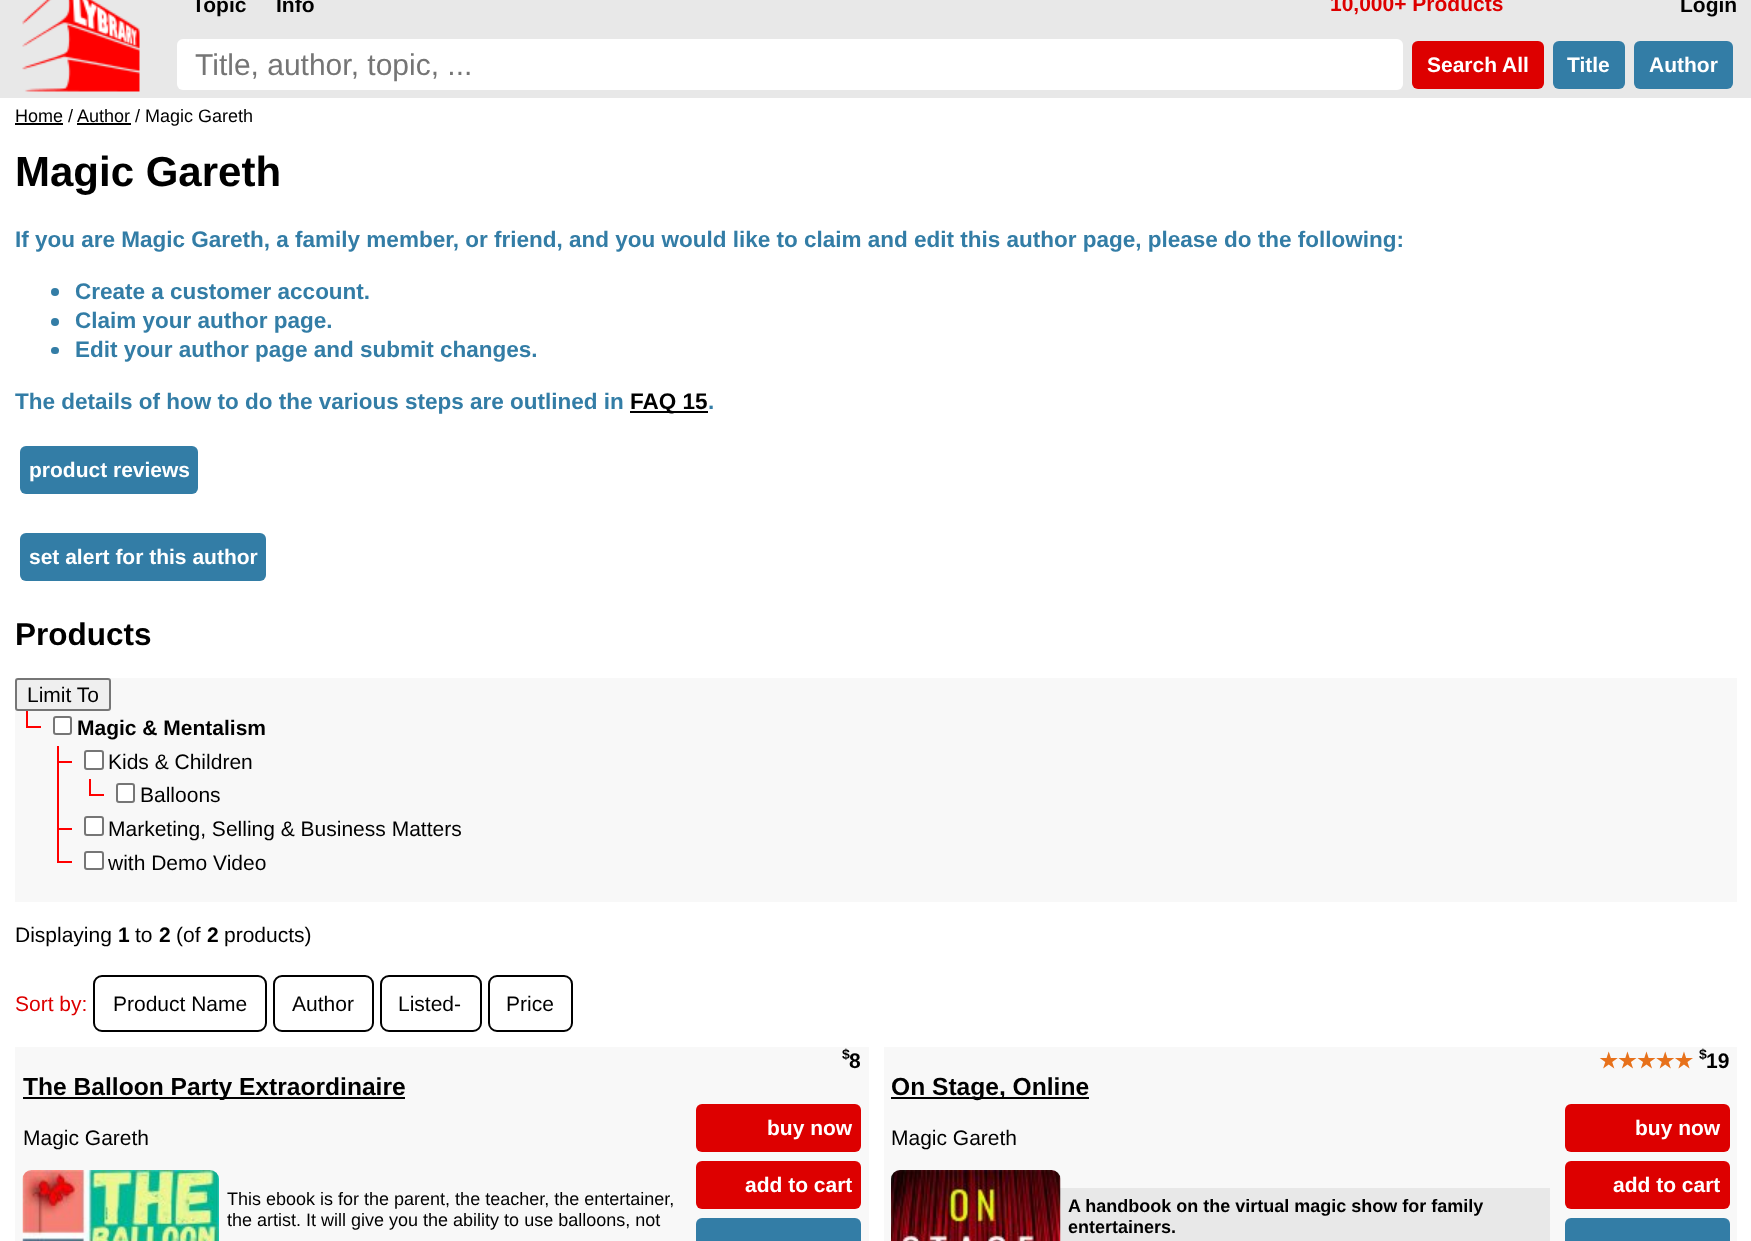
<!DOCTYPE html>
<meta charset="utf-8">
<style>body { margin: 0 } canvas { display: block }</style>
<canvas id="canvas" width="1751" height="1241"></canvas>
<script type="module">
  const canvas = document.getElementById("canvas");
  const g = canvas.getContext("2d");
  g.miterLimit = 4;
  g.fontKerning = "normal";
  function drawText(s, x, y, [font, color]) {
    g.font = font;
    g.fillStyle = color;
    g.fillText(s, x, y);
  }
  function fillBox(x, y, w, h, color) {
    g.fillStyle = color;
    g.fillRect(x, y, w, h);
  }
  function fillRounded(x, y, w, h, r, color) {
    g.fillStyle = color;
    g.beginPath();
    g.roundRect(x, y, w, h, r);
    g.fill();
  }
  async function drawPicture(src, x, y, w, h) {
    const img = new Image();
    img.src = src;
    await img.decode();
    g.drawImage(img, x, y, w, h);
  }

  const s1 = ["bold 21px Liberation Sans", "#000000"];
  const s2 = ["bold 21px Liberation Sans", "#DD0000"];
  const s3 = ["30px Liberation Sans", "#757575"];
  const s4 = ["bold 21px Liberation Sans", "#FFFFFF"];
  const s5 = ["18px Liberation Sans", "#000000"];
  const s6 = ["bold 42px Liberation Sans", "#000000"];
  const s7 = ["bold 22.5px Liberation Sans", "#337DA6"];
  const s8 = ["bold 22.5px Liberation Sans", "#000000"];
  const s9 = ["bold 31.5px Liberation Sans", "#000000"];
  const s10 = ["21px Liberation Sans", "#000000"];
  const s11 = ["21px Liberation Sans", "#DD0000"];
  const s12 = ["bold 14px Liberation Sans", "#000000"];
  const s13 = ["bold 24.6px Liberation Sans", "#000000"];
  const s14 = ["bold 21px DejaVu Sans", "#E7711B"];
  const s15 = ["bold 18px Liberation Sans", "#000000"];

  fillBox(0, 0, 1751, 1241, "#E8E8E8");
  await drawPicture("pic1.png", 22, 0, 118, 92);
  drawText("Topic", 192, 12, s1);
  drawText("Info", 276, 12, s1);
  drawText("10,000+ Products", 1330, 11, s2);
  drawText("Login", 1680, 12, s1);
  fillRounded(177, 39, 1226, 51, 6, "#FFFFFF");
  drawText("Title, author, topic, ...", 195, 75, s3);
  fillRounded(1412, 41, 132, 48, 6, "#DD0000");
  drawText("Search", 1427, 72, s4);
  drawText("All", 1502, 72, s4);
  fillRounded(1553, 41, 72, 48, 6, "#337DA6");
  drawText("Title", 1567, 72, s4);
  fillRounded(1634, 41, 99, 48, 6, "#337DA6");
  drawText("Author", 1649, 72, s4);
  fillBox(0, 98, 1751, 1143, "#FFFFFF");
  drawText("Home", 15, 122, s5);
  fillBox(15, 123, 48, 2, "#000000");
  drawText("/", 68, 122, s5);
  fillBox(77, 123, 54, 2, "#000000");
  drawText("Author / Magic Gareth", 77, 122, s5);
  drawText("Magic Gareth", 15, 186, s6);
  drawText("If you are Magic Gareth, a family member, or friend, and you would like to claim and edit this author page, please do the following:", 15, 247, s7);
  g.beginPath();
  g.arc(55, 292, 4, 0, Math.PI * 2);
  g.fill();
  drawText("Create a customer account.", 75, 299, s7);
  g.beginPath();
  g.arc(55, 322, 4, 0, Math.PI * 2);
  g.fill();
  drawText("Claim your author page.", 75, 328, s7);
  fillRounded(51, 347, 8, 7, 3.5, "#337DA6");
  drawText("Edit your author page and submit changes.", 75, 357, s7);
  drawText("The details of how to do the various steps are outlined in", 15, 409, s7);
  fillBox(630, 411, 78, 2, "#000000");
  drawText("FAQ 15", 630, 409, s8);
  drawText(".", 708, 409, s7);
  fillRounded(20, 446, 178, 48, 6, "#337DA6");
  drawText("product reviews", 29, 477, s4);
  fillRounded(20, 533, 246, 48, 6, "#337DA6");
  drawText("set alert for this author", 29, 564, s4);
  drawText("Products", 15, 645, s9);
  fillBox(15, 678, 1722, 224, "#F8F8F8");
  g.fillStyle = "#EFEFEF";
  g.beginPath();
  g.roundRect(16, 679, 94, 31, 2);
  g.fill();
  g.strokeStyle = "#767676";
  g.lineWidth = 2;
  g.stroke();
  drawText("Limit To", 27, 702, s10);
  fillBox(26, 711, 2, 15, "#FF0000");
  fillBox(26, 726, 15, 2, "#FF0000");
  g.fillStyle = "#FFFFFF";
  g.beginPath();
  g.roundRect(54, 717, 17, 17, 2);
  g.fill();
  g.stroke();
  drawText("Magic & Mentalism", 77, 735, s1);
  fillBox(57, 746, 2, 115, "#FF0000");
  fillBox(57, 761, 15, 2, "#FF0000");
  g.fillStyle = "#FFFFFF";
  g.beginPath();
  g.roundRect(85, 751, 18, 18, 2);
  g.fill();
  g.stroke();
  drawText("Kids & Children", 108, 769, s10);
  fillBox(89, 779, 2, 15, "#FF0000");
  fillBox(89, 794, 15, 2, "#FF0000");
  g.fillStyle = "#FFFFFF";
  g.beginPath();
  g.roundRect(117, 784, 17, 18, 2);
  g.fill();
  g.stroke();
  drawText("Balloons", 140, 802, s10);
  fillBox(57, 828, 15, 2, "#FF0000");
  g.fillStyle = "#FFFFFF";
  g.beginPath();
  g.roundRect(85, 817, 18, 18, 2);
  g.fill();
  g.stroke();
  drawText("Marketing, Selling & Business Matters", 108, 836, s10);
  fillBox(57, 861, 15, 2, "#FF0000");
  g.fillStyle = "#FFFFFF";
  g.beginPath();
  g.roundRect(85, 852, 18, 17, 2);
  g.fill();
  g.stroke();
  drawText("with Demo Video", 108, 870, s10);
  drawText("Displaying", 15, 942, s10);
  drawText("1", 118, 942, s1);
  drawText("to", 135, 942, s10);
  drawText("2", 159, 942, s1);
  drawText("(of", 176, 942, s10);
  drawText("2", 207, 942, s1);
  drawText("products)", 224, 942, s10);
  drawText("Sort by:", 15, 1011, s11);
  g.beginPath();
  g.roundRect(94, 976, 172, 55, 8);
  g.strokeStyle = "#000000";
  g.stroke();
  drawText("Product Name", 113, 1011, s10);
  g.beginPath();
  g.roundRect(274, 976, 99, 55, 8);
  g.stroke();
  drawText("Author", 292, 1011, s10);
  g.beginPath();
  g.roundRect(381, 976, 100, 55, 8);
  g.stroke();
  drawText("Listed-", 398, 1011, s10);
  g.beginPath();
  g.roundRect(489, 976, 83, 55, 8);
  g.stroke();
  drawText("Price", 506, 1011, s10);
  fillBox(15, 1047, 854, 194, "#F8F8F8");
  drawText("$", 842, 1059, s12);
  drawText("8", 849, 1068, s1);
  fillBox(23, 1097, 382, 2, "#000000");
  drawText("The Balloon Party Extraordinaire", 23, 1095, s13);
  drawText("Magic Gareth", 23, 1145, s10);
  fillRounded(696, 1104, 165, 48, 6, "#DD0000");
  drawText("buy now", 767, 1135, s4);
  fillRounded(696, 1161, 165, 48, 6, "#DD0000");
  drawText("add to cart", 745, 1192, s4);
  fillRounded(696, 1218, 165, 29, 6, "#337DA6");
  await drawPicture("pic2.png", 22, 1170, 197, 71);
  drawText("This ebook is for the parent, the teacher, the entertainer,", 227, 1205, s5);
  drawText("the artist. It will give you the ability to use balloons, not", 227, 1226, s5);
  fillBox(884, 1047, 853, 194, "#F8F8F8");
  drawText("★★★★★", 1599, 1068, s14);
  drawText("$", 1699, 1059, s12);
  drawText("19", 1706, 1068, s1);
  fillBox(891, 1097, 198, 2, "#000000");
  drawText("On Stage, Online", 891, 1095, s13);
  drawText("Magic Gareth", 891, 1145, s10);
  fillRounded(1565, 1104, 165, 48, 6, "#DD0000");
  drawText("buy now", 1635, 1135, s4);
  fillRounded(1565, 1161, 165, 48, 6, "#DD0000");
  drawText("add to cart", 1613, 1192, s4);
  fillRounded(1565, 1218, 165, 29, 6, "#337DA6");
  fillBox(1060, 1188, 490, 53, "#E8E8E8");
  await drawPicture("pic3.png", 891, 1170, 170, 71);
  drawText("A handbook on the virtual magic show for family", 1068, 1212, s15);
  drawText("entertainers.", 1068, 1233, s15);
</script>
